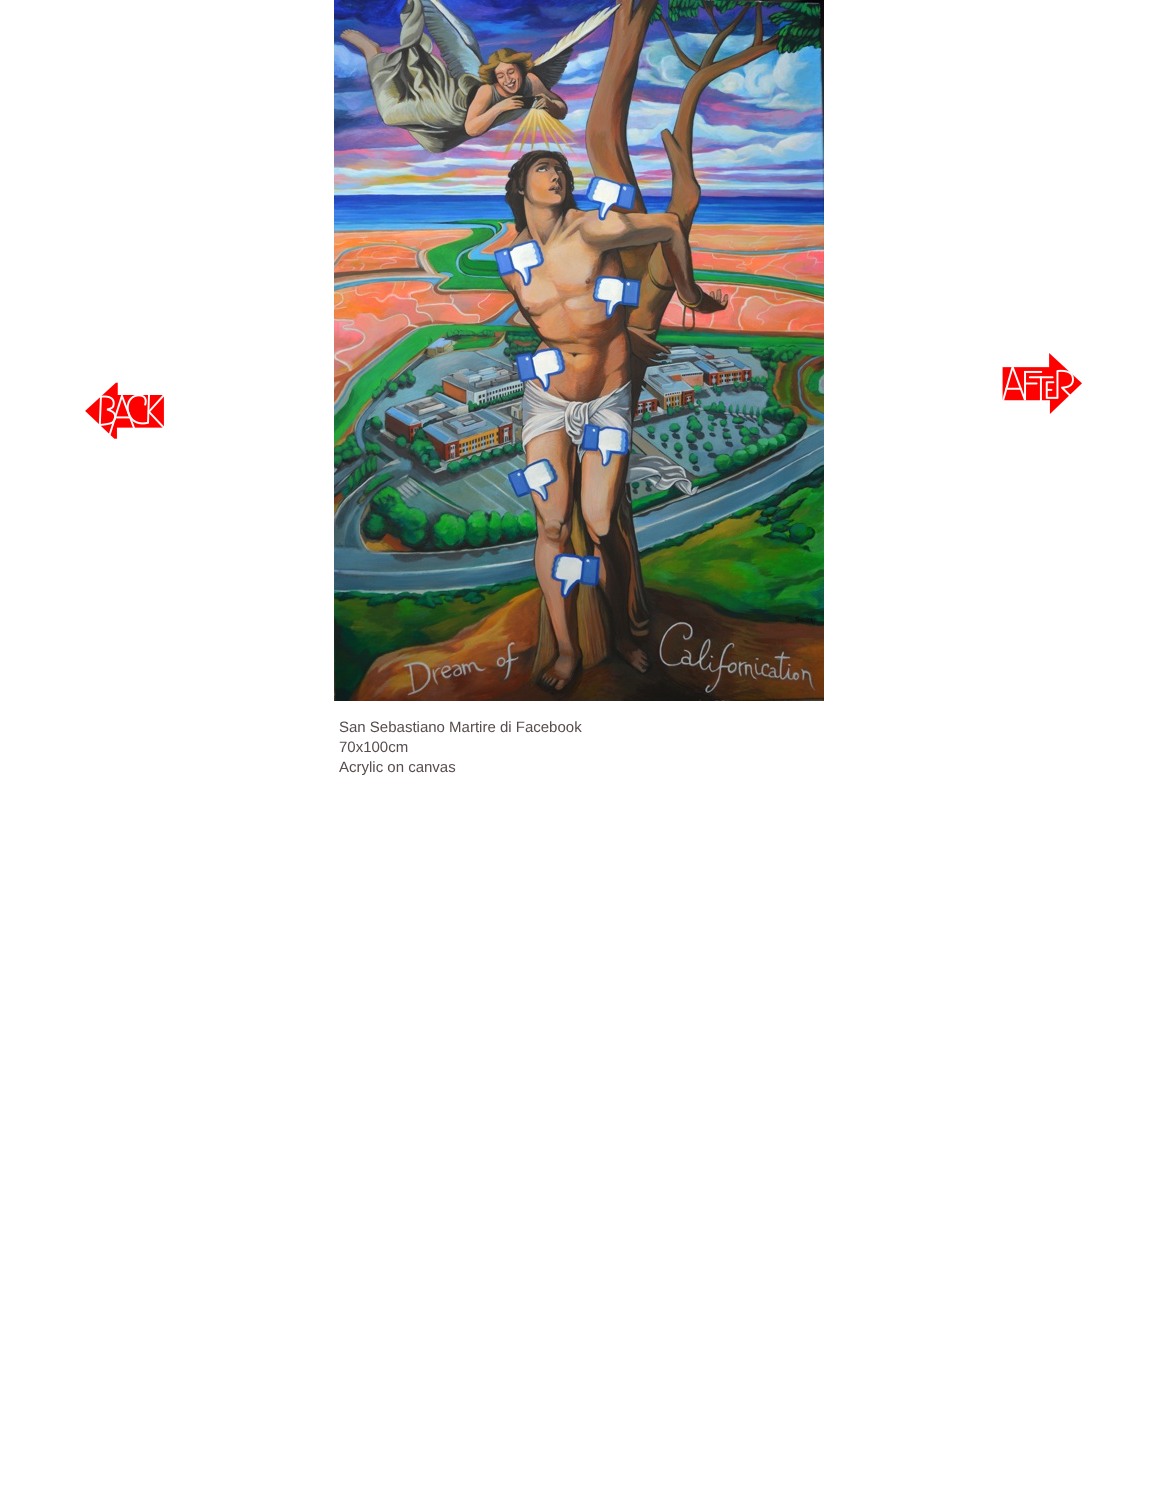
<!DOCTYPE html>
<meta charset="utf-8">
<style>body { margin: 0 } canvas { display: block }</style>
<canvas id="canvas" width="1157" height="1492"></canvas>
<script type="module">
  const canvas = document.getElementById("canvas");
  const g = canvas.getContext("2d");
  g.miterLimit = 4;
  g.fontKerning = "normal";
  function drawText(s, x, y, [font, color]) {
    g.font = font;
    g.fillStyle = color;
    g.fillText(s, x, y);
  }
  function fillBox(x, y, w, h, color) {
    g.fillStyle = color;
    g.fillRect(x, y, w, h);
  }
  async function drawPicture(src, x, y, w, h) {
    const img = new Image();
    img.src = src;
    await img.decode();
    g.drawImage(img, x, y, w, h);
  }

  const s1 = ["15px Liberation Sans", "#584D4D"];

  fillBox(0, 0, 1157, 1492, "#FFFFFF");
  await drawPicture("pic1.png", 85, 382, 79, 57);
  await drawPicture("pic2.png", 334, 0, 490, 701);
  await drawPicture("pic3.png", 1002, 353, 80, 61);
  drawText("San Sebastiano Martire di Facebook", 339, 732, s1);
  drawText("70x100cm", 339, 752, s1);
  drawText("Acrylic on canvas", 339, 772, s1);
</script>
